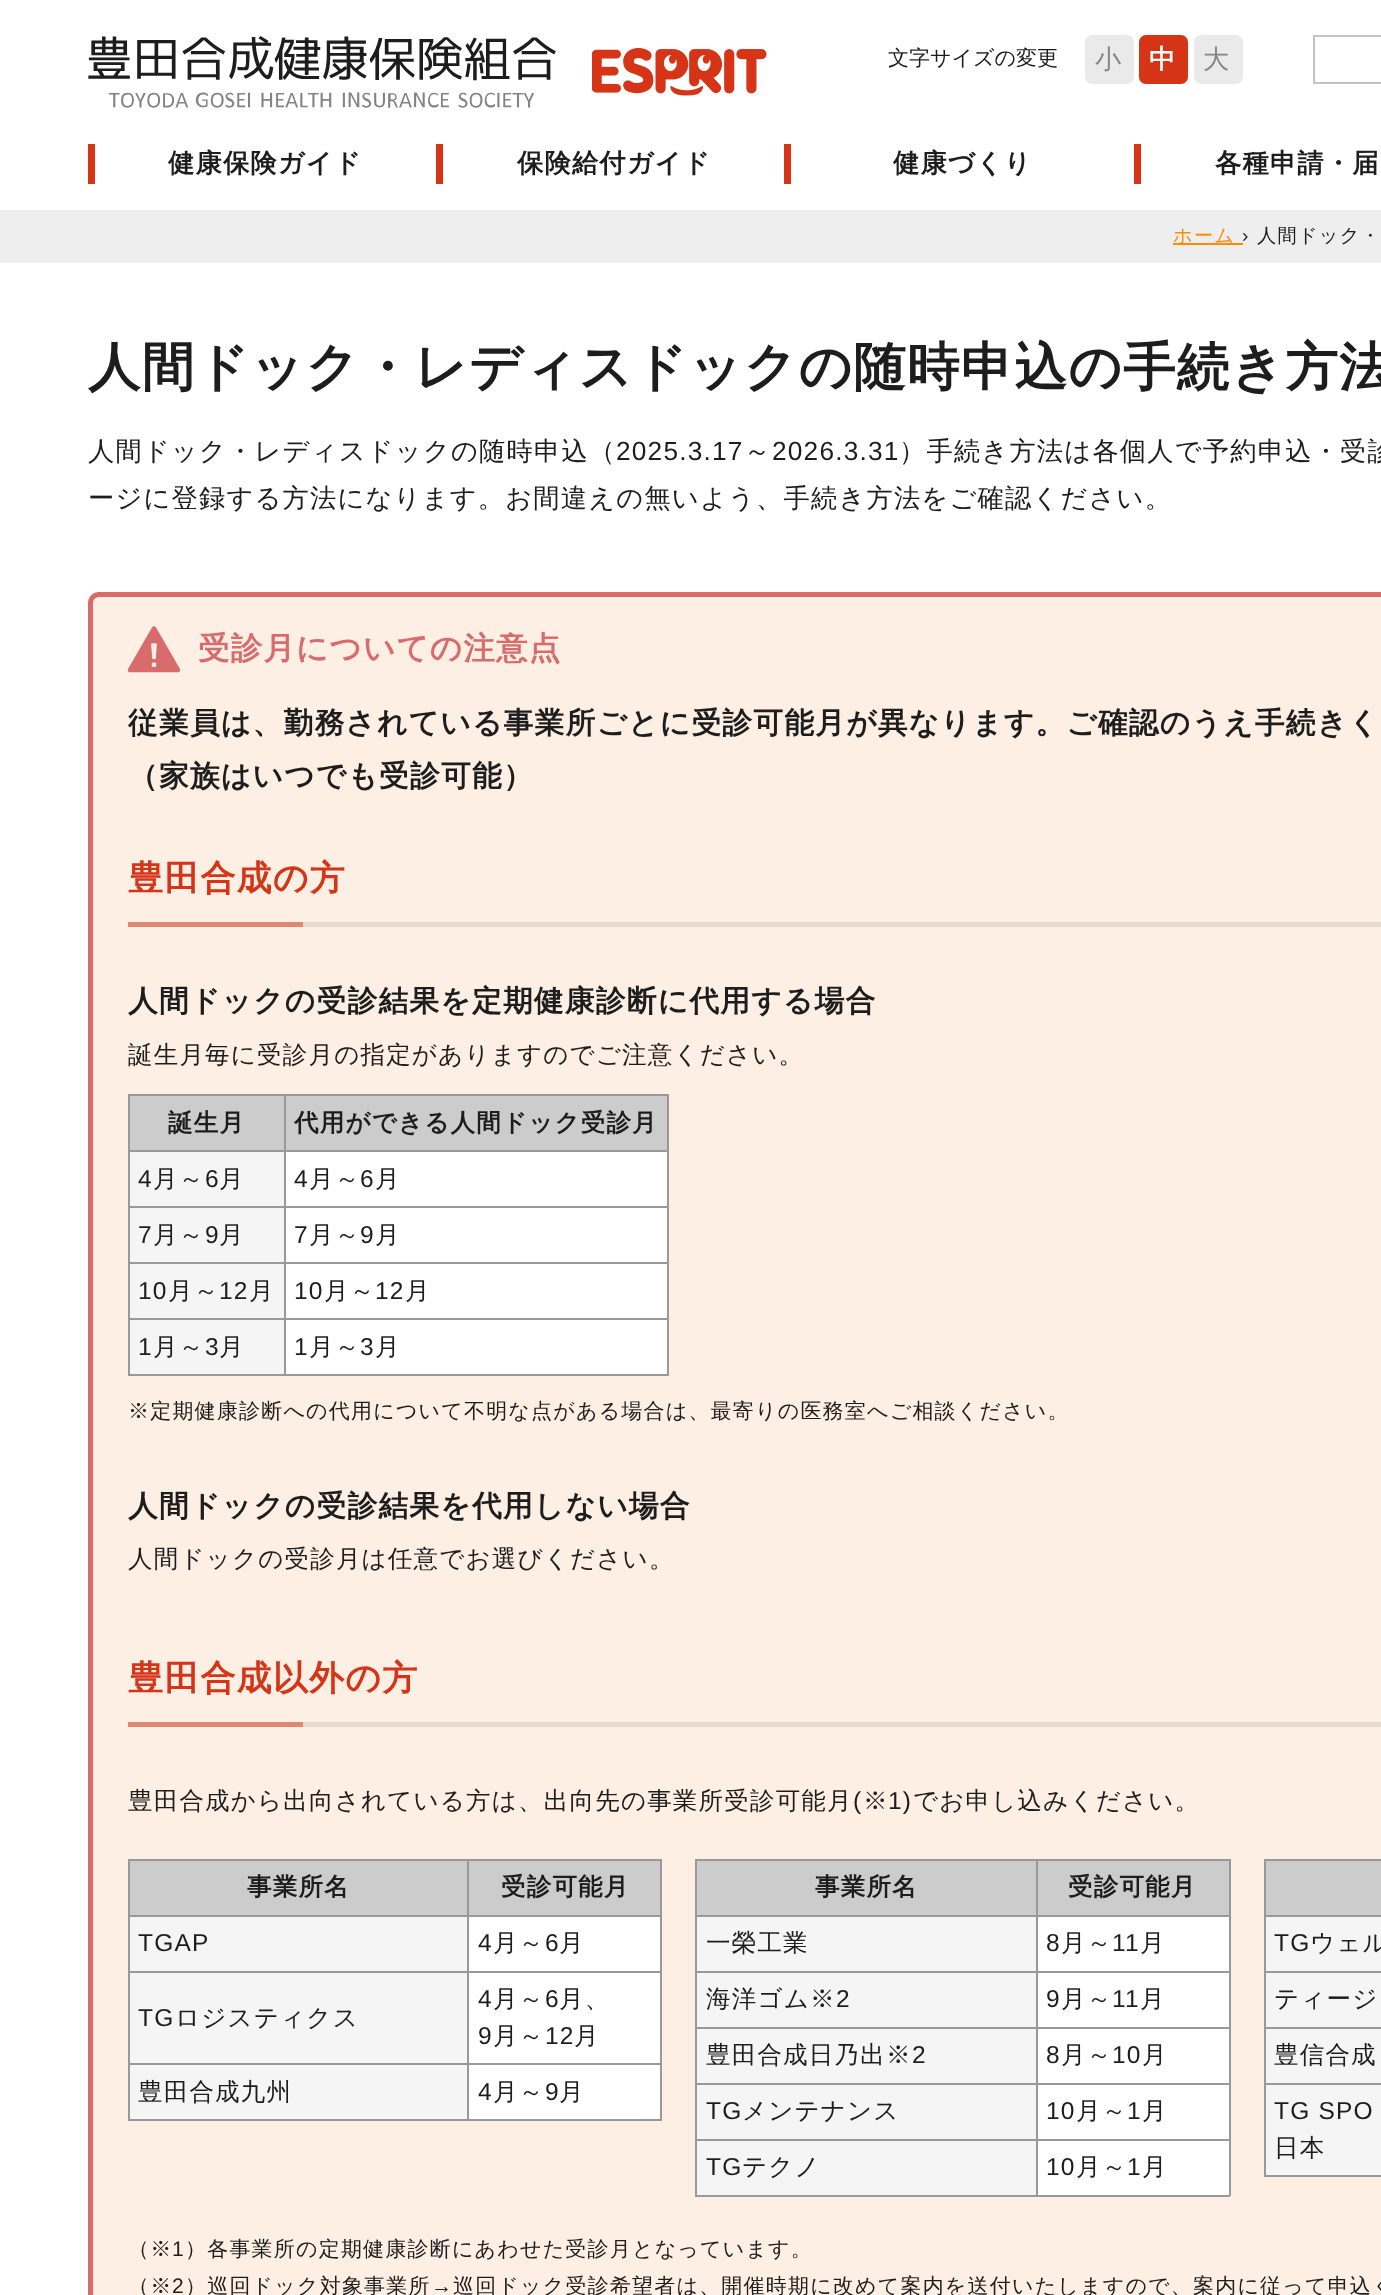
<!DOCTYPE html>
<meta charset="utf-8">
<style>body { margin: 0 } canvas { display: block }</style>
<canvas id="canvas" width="1381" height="2295"></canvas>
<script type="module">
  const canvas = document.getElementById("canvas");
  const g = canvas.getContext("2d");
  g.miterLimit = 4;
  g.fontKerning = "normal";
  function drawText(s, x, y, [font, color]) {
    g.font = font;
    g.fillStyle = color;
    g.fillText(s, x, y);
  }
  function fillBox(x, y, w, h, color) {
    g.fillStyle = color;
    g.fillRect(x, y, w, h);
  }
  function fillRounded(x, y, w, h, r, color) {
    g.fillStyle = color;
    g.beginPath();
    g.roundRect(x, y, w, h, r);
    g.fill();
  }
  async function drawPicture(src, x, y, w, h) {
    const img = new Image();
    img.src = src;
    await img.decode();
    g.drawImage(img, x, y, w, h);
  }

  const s1 = ["500 21px WenQuanYi Zen Hei", "#1D1D1D"];
  const s2 = ["500 26.25px WenQuanYi Zen Hei", "#868687"];
  const s3 = ["bold 26.25px WenQuanYi Zen Hei", "#FFFFFF"];
  const s4 = ["bold 26.25px WenQuanYi Zen Hei", "#1D1D1D"];
  const s5 = ["500 19.25px WenQuanYi Zen Hei", "#FF8C00"];
  const s6 = ["19.25px Liberation Sans", "#1D1D1D"];
  const s7 = ["500 19.25px WenQuanYi Zen Hei", "#1D1D1D"];
  const s8 = ["bold 52.5px WenQuanYi Zen Hei", "#1D1D1D"];
  const s9 = ["500 26.25px WenQuanYi Zen Hei", "#1D1D1D"];
  const s10 = ["26.25px Liberation Sans", "#1D1D1D"];
  const s11 = ["bold 31.5px WenQuanYi Zen Hei", "#D86B6B"];
  const s12 = ["bold 29.75px WenQuanYi Zen Hei", "#1D1D1D"];
  const s13 = ["bold 35px WenQuanYi Zen Hei", "#D53417"];
  const s14 = ["500 24.5px WenQuanYi Zen Hei", "#1D1D1D"];
  const s15 = ["bold 24.5px WenQuanYi Zen Hei", "#1D1D1D"];
  const s16 = ["24.5px Liberation Sans", "#1D1D1D"];
  const s17 = ["21px Liberation Sans", "#1D1D1D"];

  fillBox(0, 0, 1381, 2295, "#FFFFFF");
  await drawPicture("pic1.png", 88, 36, 468, 72);
  await drawPicture("pic2.png", 592, 48, 175, 48);
  drawText("文字サイズの変更", 888, 65, s1);
  fillRounded(1085, 35, 49, 49, 7, "#EAEAEA");
  g.letterSpacing = "1.2px";
  drawText("小", 1095, 68, s2);
  fillRounded(1139, 35, 49, 49, 7, "#D53417");
  drawText("中", 1149, 68, s3);
  fillRounded(1194, 35, 49, 49, 7, "#EAEAEA");
  drawText("大", 1203, 68, s2);
  g.strokeStyle = "#C3C3C3";
  g.lineWidth = 2;
  g.strokeRect(1314, 36, 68, 47);
  fillBox(88, 144, 7, 40, "#D53417");
  fillBox(436, 144, 7, 40, "#D53417");
  drawText("健康保険ガイド", 168, 172, s4);
  fillBox(784, 144, 7, 40, "#D53417");
  drawText("保険給付ガイド", 517, 172, s4);
  fillBox(1134, 144, 7, 40, "#D53417");
  drawText("健康づくり", 893, 172, s4);
  drawText("各種申請・届", 1215, 172, s4);
  fillBox(0, 210, 1381, 53, "#EEEEEE");
  fillBox(1173, 243, 70, 2, "#FF8C00");
  drawText("ホーム", 1173, 242, s5);
  drawText("›", 1242, 242, s6);
  drawText("人間ドック・", 1257, 242, s7);
  drawText("人間ドック・レディスドックの随時申込の手続き方法", 88, 385, s8);
  drawText("人間ドック・レディスドックの随時申込（", 88, 460, s9);
  drawText("2025.3.17", 616, 460, s10);
  drawText("～", 744, 460, s9);
  drawText("2026.3.31", 772, 460, s10);
  drawText("）手続き方法は各個人で予約申込・受診", 899, 460, s9);
  drawText("ージに登録する方法になります。お間違えの無いよう、手続き方法をご確認ください。", 88, 507, s9);
  g.fillStyle = "#FDEFE4";
  g.beginPath();
  g.roundRect(90.5, 594.5, 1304, 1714, 8.5);
  g.fill();
  g.strokeStyle = "#D86B6B";
  g.lineWidth = 5;
  g.stroke();
  await drawPicture("pic3.png", 128, 626, 52, 47);
  drawText("受診月についての注意点", 198, 659, s11);
  drawText("従業員は、勤務されている事業所ごとに受診可能月が異なります。ご確認のうえ手続きく", 128, 733, s12);
  drawText("（家族はいつでも受診可能）", 128, 786, s12);
  fillBox(303, 922, 1078, 5, "#E5DAD1");
  drawText("豊田合成の方", 128, 890, s13);
  fillBox(128, 922, 175, 5, "#DD8774");
  drawText("人間ドックの受診結果を定期健康診断に代用する場合", 128, 1011, s12);
  drawText("誕生月毎に受診月の指定がありますのでご注意ください。", 128, 1063, s14);
  fillBox(130, 1096, 154, 54, "#CCCCCC");
  fillBox(284, 1094, 385, 2, "#999999");
  fillBox(284, 1150, 385, 2, "#999999");
  fillBox(284, 1206, 385, 2, "#999999");
  fillBox(284, 1262, 385, 2, "#999999");
  fillBox(284, 1318, 385, 2, "#999999");
  fillBox(667, 1318, 2, 58, "#999999");
  fillBox(284, 1374, 385, 2, "#999999");
  fillBox(284, 1318, 2, 58, "#999999");
  fillBox(128, 1318, 157, 2, "#999999");
  fillBox(284, 1262, 2, 58, "#999999");
  fillBox(128, 1262, 157, 2, "#999999");
  fillBox(284, 1206, 2, 58, "#999999");
  fillBox(128, 1206, 157, 2, "#999999");
  fillBox(284, 1150, 2, 58, "#999999");
  fillBox(128, 1150, 157, 2, "#999999");
  fillBox(284, 1094, 2, 58, "#999999");
  fillBox(128, 1094, 157, 2, "#999999");
  fillBox(128, 1374, 157, 2, "#999999");
  fillBox(128, 1318, 2, 58, "#999999");
  fillBox(128, 1262, 2, 58, "#999999");
  fillBox(128, 1206, 2, 58, "#999999");
  fillBox(128, 1150, 2, 58, "#999999");
  fillBox(128, 1094, 2, 58, "#999999");
  drawText("誕生月", 168, 1131, s15);
  fillBox(286, 1096, 381, 54, "#CCCCCC");
  fillBox(667, 1262, 2, 58, "#999999");
  fillBox(667, 1206, 2, 58, "#999999");
  fillBox(667, 1150, 2, 58, "#999999");
  fillBox(667, 1094, 2, 58, "#999999");
  drawText("代用ができる人間ドック受診月", 294, 1131, s15);
  fillBox(130, 1152, 154, 54, "#F5F5F5");
  drawText("4", 138, 1187, s16);
  drawText("月～", 153, 1187, s14);
  drawText("6", 205, 1187, s16);
  drawText("月", 219, 1187, s14);
  fillBox(286, 1152, 381, 54, "#FFFFFF");
  drawText("4", 294, 1187, s16);
  drawText("月～", 309, 1187, s14);
  drawText("6", 360, 1187, s16);
  drawText("月", 375, 1187, s14);
  fillBox(130, 1208, 154, 54, "#F5F5F5");
  drawText("7", 138, 1243, s16);
  drawText("月～", 153, 1243, s14);
  drawText("9", 205, 1243, s16);
  drawText("月", 219, 1243, s14);
  fillBox(286, 1208, 381, 54, "#FFFFFF");
  drawText("7", 294, 1243, s16);
  drawText("月～", 309, 1243, s14);
  drawText("9", 360, 1243, s16);
  drawText("月", 375, 1243, s14);
  fillBox(130, 1264, 154, 54, "#F5F5F5");
  drawText("10", 138, 1299, s16);
  drawText("月～", 168, 1299, s14);
  drawText("12", 219, 1299, s16);
  drawText("月", 249, 1299, s14);
  fillBox(286, 1264, 381, 54, "#FFFFFF");
  drawText("10", 294, 1299, s16);
  drawText("月～", 324, 1299, s14);
  drawText("12", 375, 1299, s16);
  drawText("月", 405, 1299, s14);
  fillBox(130, 1320, 154, 54, "#F5F5F5");
  drawText("1", 138, 1355, s16);
  drawText("月～", 153, 1355, s14);
  drawText("3", 205, 1355, s16);
  drawText("月", 219, 1355, s14);
  fillBox(286, 1320, 381, 54, "#FFFFFF");
  drawText("1", 294, 1355, s16);
  drawText("月～", 309, 1355, s14);
  drawText("3", 360, 1355, s16);
  drawText("月", 375, 1355, s14);
  drawText("※定期健康診断への代用について不明な点がある場合は、最寄りの医務室へご相談ください。", 128, 1418, s1);
  drawText("人間ドックの受診結果を代用しない場合", 128, 1516, s12);
  drawText("人間ドックの受診月は任意でお選びください。", 128, 1567, s14);
  fillBox(303, 1722, 1078, 5, "#E5DAD1");
  drawText("豊田合成以外の方", 128, 1690, s13);
  fillBox(128, 1722, 175, 5, "#DD8774");
  drawText("豊田合成から出向されている方は、出向先の事業所受診可能月", 128, 1809, s14);
  drawText("(", 853, 1809, s16);
  drawText("※", 863, 1809, s14);
  drawText("1)", 888, 1809, s16);
  drawText("でお申し込みください。", 913, 1809, s14);
  fillBox(130, 1861, 337, 54, "#CCCCCC");
  fillBox(467, 1859, 195, 2, "#999999");
  fillBox(467, 1915, 195, 2, "#999999");
  fillBox(467, 1971, 195, 2, "#999999");
  fillBox(467, 2063, 195, 2, "#999999");
  fillBox(660, 2063, 2, 58, "#999999");
  fillBox(467, 2119, 195, 2, "#999999");
  fillBox(467, 2063, 2, 58, "#999999");
  fillBox(128, 2063, 341, 2, "#999999");
  fillBox(467, 1971, 2, 94, "#999999");
  fillBox(128, 1971, 341, 2, "#999999");
  fillBox(467, 1915, 2, 57, "#999999");
  fillBox(128, 1915, 341, 2, "#999999");
  fillBox(467, 1859, 2, 57, "#999999");
  fillBox(128, 1859, 341, 2, "#999999");
  fillBox(128, 2119, 341, 2, "#999999");
  fillBox(128, 2063, 2, 58, "#999999");
  fillBox(128, 1971, 2, 94, "#999999");
  fillBox(128, 1915, 2, 57, "#999999");
  fillBox(128, 1859, 2, 57, "#999999");
  drawText("事業所名", 247, 1895, s15);
  fillBox(469, 1861, 191, 54, "#CCCCCC");
  fillBox(660, 1971, 2, 94, "#999999");
  fillBox(660, 1915, 2, 57, "#999999");
  fillBox(660, 1859, 2, 57, "#999999");
  drawText("受診可能月", 501, 1895, s15);
  fillBox(130, 1917, 337, 54, "#F5F5F5");
  drawText("TGAP", 138, 1951, s16);
  fillBox(469, 1917, 191, 54, "#FFFFFF");
  drawText("4", 478, 1951, s16);
  drawText("月～", 493, 1951, s14);
  drawText("6", 545, 1951, s16);
  drawText("月", 559, 1951, s14);
  fillBox(130, 1973, 337, 90, "#F5F5F5");
  drawText("TG", 138, 2026, s16);
  drawText("ロジスティクス", 175, 2026, s14);
  fillBox(469, 1973, 191, 90, "#FFFFFF");
  drawText("4", 478, 2007, s16);
  drawText("月～", 493, 2007, s14);
  drawText("6", 545, 2007, s16);
  drawText("月、", 559, 2007, s14);
  drawText("9", 478, 2044, s16);
  drawText("月～", 493, 2044, s14);
  drawText("12", 545, 2044, s16);
  drawText("月", 574, 2044, s14);
  fillBox(130, 2065, 337, 54, "#F5F5F5");
  drawText("豊田合成九州", 138, 2100, s14);
  fillBox(469, 2065, 191, 54, "#FFFFFF");
  drawText("4", 478, 2100, s16);
  drawText("月～", 493, 2100, s14);
  drawText("9", 545, 2100, s16);
  drawText("月", 559, 2100, s14);
  fillBox(697, 1861, 339, 54, "#CCCCCC");
  fillBox(1036, 1859, 194, 2, "#999999");
  fillBox(1036, 1915, 194, 2, "#999999");
  fillBox(1036, 1971, 194, 2, "#999999");
  fillBox(1036, 2027, 194, 2, "#999999");
  fillBox(1036, 2083, 194, 2, "#999999");
  fillBox(1036, 2139, 194, 2, "#999999");
  fillBox(1229, 2139, 2, 57, "#999999");
  fillBox(1036, 2195, 194, 2, "#999999");
  fillBox(1036, 2139, 2, 57, "#999999");
  fillBox(695, 2139, 343, 2, "#999999");
  fillBox(1036, 2083, 2, 57, "#999999");
  fillBox(695, 2083, 343, 2, "#999999");
  fillBox(1036, 2027, 2, 57, "#999999");
  fillBox(695, 2027, 343, 2, "#999999");
  fillBox(1036, 1971, 2, 57, "#999999");
  fillBox(695, 1971, 343, 2, "#999999");
  fillBox(1036, 1915, 2, 57, "#999999");
  fillBox(695, 1915, 343, 2, "#999999");
  fillBox(1036, 1859, 2, 57, "#999999");
  fillBox(695, 1859, 343, 2, "#999999");
  fillBox(695, 2195, 343, 2, "#999999");
  fillBox(695, 2139, 2, 57, "#999999");
  fillBox(695, 2083, 2, 57, "#999999");
  fillBox(695, 2027, 2, 57, "#999999");
  fillBox(695, 1971, 2, 57, "#999999");
  fillBox(695, 1915, 2, 57, "#999999");
  fillBox(695, 1859, 2, 57, "#999999");
  drawText("事業所名", 815, 1895, s15);
  fillBox(1038, 1861, 191, 54, "#CCCCCC");
  fillBox(1229, 2083, 2, 57, "#999999");
  fillBox(1229, 2027, 2, 57, "#999999");
  fillBox(1229, 1971, 2, 57, "#999999");
  fillBox(1229, 1915, 2, 57, "#999999");
  fillBox(1229, 1859, 2, 57, "#999999");
  drawText("受診可能月", 1068, 1895, s15);
  fillBox(697, 1917, 339, 54, "#F5F5F5");
  drawText("一榮工業", 706, 1951, s14);
  fillBox(1038, 1917, 191, 54, "#FFFFFF");
  drawText("8", 1046, 1951, s16);
  drawText("月～", 1061, 1951, s14);
  drawText("11", 1112, 1951, s16);
  drawText("月", 1140, 1951, s14);
  fillBox(697, 1973, 339, 54, "#F5F5F5");
  drawText("海洋ゴム※", 706, 2007, s14);
  drawText("2", 836, 2007, s16);
  fillBox(1038, 1973, 191, 54, "#FFFFFF");
  drawText("9", 1046, 2007, s16);
  drawText("月～", 1061, 2007, s14);
  drawText("11", 1112, 2007, s16);
  drawText("月", 1140, 2007, s14);
  fillBox(697, 2029, 339, 54, "#F5F5F5");
  drawText("豊田合成日乃出※", 706, 2063, s14);
  drawText("2", 912, 2063, s16);
  fillBox(1038, 2029, 191, 54, "#FFFFFF");
  drawText("8", 1046, 2063, s16);
  drawText("月～", 1061, 2063, s14);
  drawText("10", 1112, 2063, s16);
  drawText("月", 1142, 2063, s14);
  fillBox(697, 2085, 339, 54, "#F5F5F5");
  drawText("TG", 706, 2119, s16);
  drawText("メンテナンス", 742, 2119, s14);
  fillBox(1038, 2085, 191, 54, "#FFFFFF");
  drawText("10", 1046, 2119, s16);
  drawText("月～", 1076, 2119, s14);
  drawText("1", 1127, 2119, s16);
  drawText("月", 1142, 2119, s14);
  fillBox(697, 2141, 339, 54, "#F5F5F5");
  drawText("TG", 706, 2175, s16);
  drawText("テクノ", 742, 2175, s14);
  fillBox(1038, 2141, 191, 54, "#FFFFFF");
  drawText("10", 1046, 2175, s16);
  drawText("月～", 1076, 2175, s14);
  drawText("1", 1127, 2175, s16);
  drawText("月", 1142, 2175, s14);
  fillBox(1266, 1861, 115, 54, "#CCCCCC");
  fillBox(1264, 1859, 117, 2, "#999999");
  fillBox(1264, 1915, 117, 2, "#999999");
  fillBox(1264, 1971, 117, 2, "#999999");
  fillBox(1264, 2027, 117, 2, "#999999");
  fillBox(1264, 2083, 117, 2, "#999999");
  fillBox(1264, 2175, 117, 2, "#999999");
  fillBox(1264, 2083, 2, 94, "#999999");
  fillBox(1264, 2027, 2, 57, "#999999");
  fillBox(1264, 1971, 2, 57, "#999999");
  fillBox(1264, 1915, 2, 57, "#999999");
  fillBox(1264, 1859, 2, 57, "#999999");
  fillBox(1266, 1917, 115, 54, "#F5F5F5");
  drawText("TG", 1274, 1951, s16);
  drawText("ウェル", 1310, 1951, s14);
  fillBox(1266, 1973, 115, 54, "#F5F5F5");
  drawText("ティージ", 1274, 2007, s14);
  fillBox(1266, 2029, 115, 54, "#F5F5F5");
  drawText("豊信合成", 1274, 2063, s14);
  fillBox(1266, 2085, 115, 90, "#F5F5F5");
  drawText("TG SPO", 1274, 2119, s16);
  drawText("日本", 1274, 2156, s14);
  drawText("（※", 128, 2256, s1);
  drawText("1", 172, 2256, s17);
  drawText("）各事業所の定期健康診断にあわせた受診月となっています。", 185, 2256, s1);
  drawText("（※", 128, 2293, s1);
  drawText("2", 172, 2293, s17);
  drawText("）巡回ドック対象事業所", 185, 2293, s1);
  drawText("→", 431, 2293, s17);
  drawText("巡回ドック受診希望者は、開催時期に改めて案内を送付いたしますので、案内に従って申込く", 453, 2293, s1);
</script>
